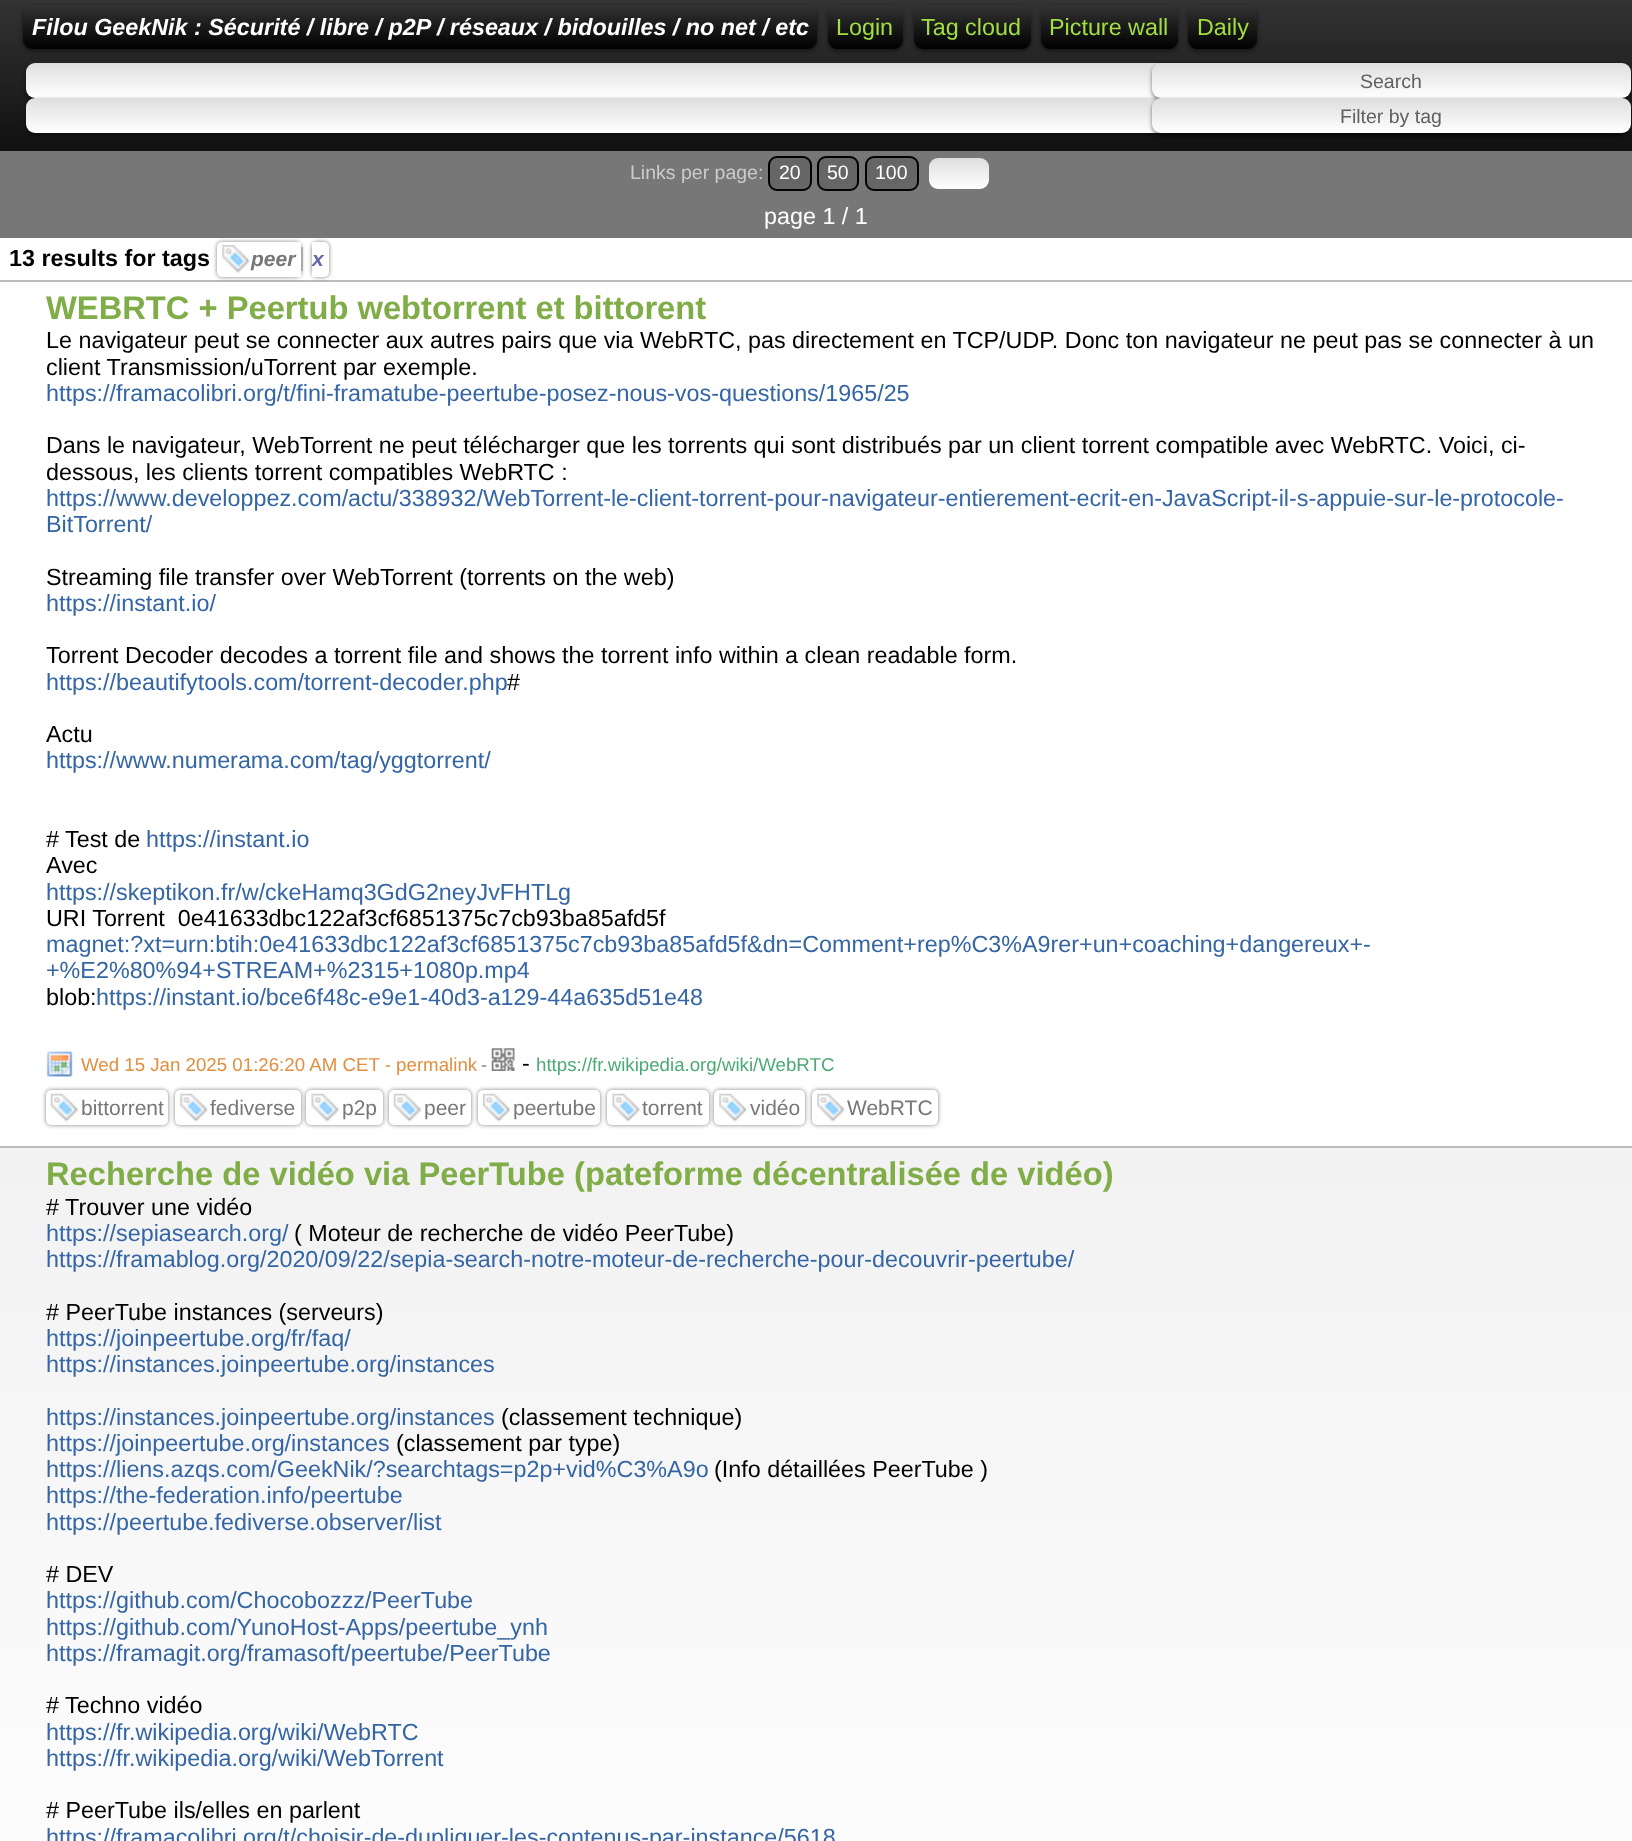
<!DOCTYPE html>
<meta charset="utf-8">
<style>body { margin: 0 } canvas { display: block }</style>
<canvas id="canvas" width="1632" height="1841"></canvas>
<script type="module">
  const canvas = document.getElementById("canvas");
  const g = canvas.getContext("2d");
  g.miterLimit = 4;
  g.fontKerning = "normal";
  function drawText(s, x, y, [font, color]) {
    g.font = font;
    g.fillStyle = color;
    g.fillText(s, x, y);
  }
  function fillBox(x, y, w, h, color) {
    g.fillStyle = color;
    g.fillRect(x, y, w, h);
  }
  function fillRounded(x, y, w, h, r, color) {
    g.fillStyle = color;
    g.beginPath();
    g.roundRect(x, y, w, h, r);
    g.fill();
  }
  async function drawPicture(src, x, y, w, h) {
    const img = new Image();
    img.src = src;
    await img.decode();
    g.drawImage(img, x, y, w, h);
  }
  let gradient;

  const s1 = ["italic bold 23.33px Liberation Sans", "#FFFFFF"];
  const s2 = ["23.33px Liberation Sans", "#A2DD42"];
  const s3 = ["19.5px Liberation Sans", "#606060"];
  const s4 = ["19.5px Liberation Sans", "#CCCCCC"];
  const s5 = ["19.5px Liberation Sans", "#FFFFFF"];
  const s6 = ["23.33px Liberation Sans", "#FFFFFF"];
  const s7 = ["bold 23.33px Liberation Sans", "#000000"];
  const s8 = ["italic bold 21px Liberation Sans", "#777777"];
  const s9 = ["italic bold 21px Liberation Sans", "#6767A7"];
  const s10 = ["bold 32.7px Liberation Sans", "#80AD48"];
  const s11 = ["23.33px Liberation Sans", "#000000"];
  const s12 = ["23.33px Liberation Sans", "#3465A4"];
  const s13 = ["18.7px Liberation Sans", "#E28E3F"];
  const s14 = ["18.7px Liberation Sans", "#888888"];
  const s15 = ["18.7px Liberation Sans", "#4BAA74"];
  const s16 = ["21px Liberation Sans", "#777777"];

  fillBox(0, 0, 1632, 1841, "#FFFFFF");
  gradient = g.createLinearGradient(816, 0, 816, 151);
  gradient.addColorStop(0, "#333333");
  gradient.addColorStop(1, "#111111");
  g.fillStyle = gradient;
  g.fillRect(0, 0, 1632, 151);
  g.fillStyle = "rgba(0, 0, 0, 0.5)";
  g.filter = "blur(2px)";
  g.beginPath();
  g.roundRect(23, 7, 794, 44, 9);
  g.fill();
  g.filter = "none";
  gradient = g.createLinearGradient(420, 5.2, 420, 49);
  gradient.addColorStop(0, "#333333");
  gradient.addColorStop(1, "#000000");
  g.fillStyle = gradient;
  g.beginPath();
  g.roundRect(23, 5, 794, 44, 9);
  g.fill();
  drawText("Filou GeekNik : Sécurité / libre / p2P / réseaux / bidouilles / no net / etc", 32, 35, s1);
  g.fillStyle = "rgba(0, 0, 0, 0.5)";
  g.filter = "blur(2px)";
  g.beginPath();
  g.roundRect(828, 7, 75, 44, 9);
  g.fill();
  g.filter = "none";
  gradient = g.createLinearGradient(865, 5.2, 865, 49);
  gradient.addColorStop(0, "#333333");
  gradient.addColorStop(1, "#000000");
  g.fillStyle = gradient;
  g.beginPath();
  g.roundRect(828, 5, 75, 44, 9);
  g.fill();
  drawText("Login", 836, 35, s2);
  g.fillStyle = "rgba(0, 0, 0, 0.5)";
  g.filter = "blur(2px)";
  g.beginPath();
  g.roundRect(914, 7, 117, 44, 9);
  g.fill();
  g.filter = "none";
  gradient = g.createLinearGradient(972, 5.2, 972, 49);
  gradient.addColorStop(0, "#333333");
  gradient.addColorStop(1, "#000000");
  g.fillStyle = gradient;
  g.beginPath();
  g.roundRect(914, 5, 117, 44, 9);
  g.fill();
  drawText("Tag cloud", 921, 35, s2);
  g.fillStyle = "rgba(0, 0, 0, 0.5)";
  g.filter = "blur(2px)";
  g.beginPath();
  g.roundRect(1041, 7, 137, 44, 9);
  g.fill();
  g.filter = "none";
  gradient = g.createLinearGradient(1110, 5.2, 1110, 49);
  gradient.addColorStop(0, "#333333");
  gradient.addColorStop(1, "#000000");
  g.fillStyle = gradient;
  g.beginPath();
  g.roundRect(1041, 5, 137, 44, 9);
  g.fill();
  drawText("Picture wall", 1049, 35, s2);
  g.fillStyle = "rgba(0, 0, 0, 0.5)";
  g.filter = "blur(2px)";
  g.beginPath();
  g.roundRect(1188, 7, 69, 44, 9);
  g.fill();
  g.filter = "none";
  gradient = g.createLinearGradient(1222, 5.2, 1222, 49);
  gradient.addColorStop(0, "#333333");
  gradient.addColorStop(1, "#000000");
  g.fillStyle = gradient;
  g.beginPath();
  g.roundRect(1188, 5, 69, 44, 9);
  g.fill();
  drawText("Daily", 1197, 35, s2);
  g.fillStyle = "rgba(0, 0, 0, 0.5)";
  g.filter = "blur(2px)";
  g.beginPath();
  g.roundRect(26, 65, 1598, 35, 9);
  g.fill();
  g.filter = "none";
  gradient = g.createLinearGradient(825, 63, 825, 98);
  gradient.addColorStop(0, "#DEDEDE");
  gradient.addColorStop(1, "#FFFFFF");
  g.fillStyle = gradient;
  g.beginPath();
  g.roundRect(26, 63, 1598, 35, 9);
  g.fill();
  g.fillStyle = "rgba(0, 0, 0, 0.5)";
  g.filter = "blur(2px)";
  g.beginPath();
  g.roundRect(26, 100, 1598, 35, 9);
  g.fill();
  g.filter = "none";
  gradient = g.createLinearGradient(825, 98, 825, 133);
  gradient.addColorStop(0, "#DEDEDE");
  gradient.addColorStop(1, "#FFFFFF");
  g.fillStyle = gradient;
  g.beginPath();
  g.roundRect(26, 98, 1598, 35, 9);
  g.fill();
  g.fillStyle = "rgba(0, 0, 0, 0.5)";
  g.filter = "blur(2px)";
  g.beginPath();
  g.roundRect(1152, 65, 479, 35, 9);
  g.fill();
  g.filter = "none";
  gradient = g.createLinearGradient(1391, 63, 1391, 98);
  gradient.addColorStop(0, "#DEDEDE");
  gradient.addColorStop(1, "#FFFFFF");
  g.fillStyle = gradient;
  g.beginPath();
  g.roundRect(1152, 63, 479, 35, 9);
  g.fill();
  drawText("Search", 1360, 88, s3);
  g.fillStyle = "rgba(0, 0, 0, 0.5)";
  g.filter = "blur(2px)";
  g.beginPath();
  g.roundRect(1152, 100, 479, 35, 9);
  g.fill();
  g.filter = "none";
  gradient = g.createLinearGradient(1391, 98, 1391, 133);
  gradient.addColorStop(0, "#DEDEDE");
  gradient.addColorStop(1, "#FFFFFF");
  g.fillStyle = gradient;
  g.beginPath();
  g.roundRect(1152, 98, 479, 35, 9);
  g.fill();
  drawText("Filter by tag", 1340, 123, s3);
  fillBox(0, 151, 1632, 87, "#777777");
  drawText("Links per page:", 630, 179, s4);
  g.fillStyle = "#666666";
  g.beginPath();
  g.roundRect(769, 157, 42, 33, 8);
  g.fill();
  g.strokeStyle = "#000000";
  g.lineWidth = 2;
  g.stroke();
  drawText("20", 779, 179, s5);
  g.fillStyle = "#666666";
  g.beginPath();
  g.roundRect(818, 157, 40, 33, 8);
  g.fill();
  g.stroke();
  drawText("50", 827, 179, s5);
  g.fillStyle = "#666666";
  g.beginPath();
  g.roundRect(866, 157, 52, 33, 8);
  g.fill();
  g.stroke();
  drawText("100", 875, 179, s5);
  gradient = g.createLinearGradient(959, 158, 959, 189);
  gradient.addColorStop(0, "#DEDEDE");
  gradient.addColorStop(1, "#FFFFFF");
  g.fillStyle = gradient;
  g.beginPath();
  g.roundRect(929, 158, 60, 31, 9);
  g.fill();
  drawText("page 1 / 1", 764, 224, s6);
  drawText("13 results for tags", 9, 266, s7);
  fillBox(0, 280, 1632, 2, "#BBBBBB");
  g.fillStyle = "rgba(0, 0, 0, 0.5)";
  g.filter = "blur(2px)";
  g.beginPath();
  g.roundRect(217, 242, 84, 35, 5);
  g.fill();
  g.filter = "none";
  g.fillStyle = "#FFFFFF";
  g.beginPath();
  g.roundRect(217, 242, 84, 35, [5, 0, 0, 5]);
  g.fill();
  await drawPicture("pic1.png", 222, 245, 28, 28);
  drawText("peer", 251, 266, s8);
  g.fillStyle = "rgba(0, 0, 0, 0.5)";
  g.filter = "blur(2px)";
  g.beginPath();
  g.roundRect(312, 242, 17, 35, 5);
  g.fill();
  g.filter = "none";
  g.fillStyle = "#FFFFFF";
  g.beginPath();
  g.roundRect(312, 242, 17, 35, [0, 5, 5, 0]);
  g.fill();
  drawText("x", 312, 266, s9);
  fillBox(301, 247, 2, 24, "#AAAAAA");
  drawText("WEBRTC + Peertub webtorrent et bittorent", 46, 319, s10);
  drawText("Le navigateur peut se connecter aux autres pairs que via WebRTC, pas directement en TCP/UDP. Donc ton navigateur ne peut pas se connecter à un", 46, 348, s11);
  drawText("client Transmission/uTorrent par exemple.", 46, 375, s11);
  drawText("https://framacolibri.org/t/fini-framatube-peertube-posez-nous-vos-questions/1965/25", 46, 401, s12);
  drawText("Dans le navigateur, WebTorrent ne peut télécharger que les torrents qui sont distribués par un client torrent compatible avec WebRTC. Voici, ci-", 46, 453, s11);
  drawText("dessous, les clients torrent compatibles WebRTC :", 46, 480, s11);
  drawText("https://www.developpez.com/actu/338932/WebTorrent-le-client-torrent-pour-navigateur-entierement-ecrit-en-JavaScript-il-s-appuie-sur-le-protocole-", 46, 506, s12);
  drawText("BitTorrent/", 46, 532, s12);
  drawText("Streaming file transfer over WebTorrent (torrents on the web)", 46, 585, s11);
  drawText("https://instant.io/", 46, 611, s12);
  drawText("Torrent Decoder decodes a torrent file and shows the torrent info within a clean readable form.", 46, 663, s11);
  drawText("https://beautifytools.com/torrent-decoder.php", 46, 690, s12);
  drawText("#", 507, 690, s11);
  drawText("Actu", 46, 742, s11);
  drawText("https://www.numerama.com/tag/yggtorrent/", 46, 768, s12);
  drawText("# Test de", 46, 847, s11);
  drawText("https://instant.io", 146, 847, s12);
  drawText("Avec", 46, 873, s11);
  drawText("https://skeptikon.fr/w/ckeHamq3GdG2neyJvFHTLg", 46, 900, s12);
  drawText("URI Torrent  0e41633dbc122af3cf6851375c7cb93ba85afd5f", 46, 926, s11);
  drawText("magnet:?xt=urn:btih:0e41633dbc122af3cf6851375c7cb93ba85afd5f&dn=Comment+rep%C3%A9rer+un+coaching+dangereux+-", 46, 952, s12);
  drawText("+%E2%80%94+STREAM+%2315+1080p.mp4", 46, 978, s12);
  drawText("blob:", 46, 1005, s11);
  drawText("https://instant.io/bce6f48c-e9e1-40d3-a129-44a635d51e48", 96, 1005, s12);
  await drawPicture("pic2.png", 46, 1051, 27, 26);
  drawText("Wed 15 Jan 2025 01:26:20 AM CET - permalink", 81, 1071, s13);
  drawText("-", 481, 1071, s14);
  await drawPicture("pic3.png", 491, 1048, 24, 23);
  drawText("-", 522, 1071, s11);
  drawText("https://fr.wikipedia.org/wiki/WebRTC", 536, 1071, s15);
  g.fillStyle = "rgba(0, 0, 0, 0.5)";
  g.filter = "blur(2px)";
  g.beginPath();
  g.roundRect(46, 1090, 122, 35, 5);
  g.fill();
  g.filter = "none";
  fillRounded(46, 1090, 122, 35, 5, "#FFFFFF");
  await drawPicture("pic4.png", 50, 1093, 29, 29);
  drawText("bittorrent", 81, 1115, s16);
  g.fillStyle = "rgba(0, 0, 0, 0.5)";
  g.filter = "blur(2px)";
  g.beginPath();
  g.roundRect(175, 1090, 126, 35, 5);
  g.fill();
  g.filter = "none";
  fillRounded(175, 1090, 126, 35, 5, "#FFFFFF");
  await drawPicture("pic5.png", 180, 1093, 28, 29);
  drawText("fediverse", 210, 1115, s16);
  g.fillStyle = "rgba(0, 0, 0, 0.5)";
  g.filter = "blur(2px)";
  g.beginPath();
  g.roundRect(306, 1090, 77, 35, 5);
  g.fill();
  g.filter = "none";
  fillRounded(306, 1090, 77, 35, 5, "#FFFFFF");
  await drawPicture("pic6.png", 311, 1093, 29, 29);
  drawText("p2p", 342, 1115, s16);
  g.fillStyle = "rgba(0, 0, 0, 0.5)";
  g.filter = "blur(2px)";
  g.beginPath();
  g.roundRect(389, 1090, 82, 35, 5);
  g.fill();
  g.filter = "none";
  fillRounded(389, 1090, 82, 35, 5, "#FFFFFF");
  await drawPicture("pic4.png", 393, 1093, 29, 29);
  drawText("peer", 424, 1115, s16);
  g.fillStyle = "rgba(0, 0, 0, 0.5)";
  g.filter = "blur(2px)";
  g.beginPath();
  g.roundRect(478, 1090, 122, 35, 5);
  g.fill();
  g.filter = "none";
  fillRounded(478, 1090, 122, 35, 5, "#FFFFFF");
  await drawPicture("pic7.png", 483, 1093, 28, 29);
  drawText("peertube", 513, 1115, s16);
  g.fillStyle = "rgba(0, 0, 0, 0.5)";
  g.filter = "blur(2px)";
  g.beginPath();
  g.roundRect(607, 1090, 102, 35, 5);
  g.fill();
  g.filter = "none";
  fillRounded(607, 1090, 102, 35, 5, "#FFFFFF");
  await drawPicture("pic6.png", 612, 1093, 29, 29);
  drawText("torrent", 642, 1115, s16);
  g.fillStyle = "rgba(0, 0, 0, 0.5)";
  g.filter = "blur(2px)";
  g.beginPath();
  g.roundRect(714, 1090, 91, 35, 5);
  g.fill();
  g.filter = "none";
  fillRounded(714, 1090, 91, 35, 5, "#FFFFFF");
  await drawPicture("pic5.png", 719, 1093, 28, 29);
  drawText("vidéo", 750, 1115, s16);
  g.fillStyle = "rgba(0, 0, 0, 0.5)";
  g.filter = "blur(2px)";
  g.beginPath();
  g.roundRect(812, 1090, 126, 35, 5);
  g.fill();
  g.filter = "none";
  fillRounded(812, 1090, 126, 35, 5, "#FFFFFF");
  await drawPicture("pic8.png", 817, 1093, 28, 29);
  drawText("WebRTC", 847, 1115, s16);
  gradient = g.createLinearGradient(816, 1148, 816, 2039);
  gradient.addColorStop(0, "#F2F2F2");
  gradient.addColorStop(1, "#FFFFFF");
  g.fillStyle = gradient;
  g.fillRect(0, 1148, 1632, 693);
  fillBox(0, 1146, 1632, 2, "#BBBBBB");
  drawText("Recherche de vidéo via PeerTube (pateforme décentralisée de vidéo)", 46, 1185, s10);
  drawText("# Trouver une vidéo", 46, 1215, s11);
  drawText("https://sepiasearch.org/", 46, 1241, s12);
  drawText("( Moteur de recherche de vidéo PeerTube)", 294, 1241, s11);
  drawText("https://framablog.org/2020/09/22/sepia-search-notre-moteur-de-recherche-pour-decouvrir-peertube/", 46, 1267, s12);
  drawText("# PeerTube instances (serveurs)", 46, 1320, s11);
  drawText("https://joinpeertube.org/fr/faq/", 46, 1346, s12);
  drawText("https://instances.joinpeertube.org/instances", 46, 1372, s12);
  drawText("https://instances.joinpeertube.org/instances", 46, 1425, s12);
  drawText("(classement technique)", 501, 1425, s11);
  drawText("https://joinpeertube.org/instances", 46, 1451, s12);
  drawText("(classement par type)", 396, 1451, s11);
  drawText("https://liens.azqs.com/GeekNik/?searchtags=p2p+vid%C3%A9o", 46, 1477, s12);
  drawText("(Info détaillées PeerTube )", 714, 1477, s11);
  drawText("https://the-federation.info/peertube", 46, 1503, s12);
  drawText("https://peertube.fediverse.observer/list", 46, 1530, s12);
  drawText("# DEV", 46, 1582, s11);
  drawText("https://github.com/Chocobozzz/PeerTube", 46, 1608, s12);
  drawText("https://github.com/YunoHost-Apps/peertube_ynh", 46, 1635, s12);
  drawText("https://framagit.org/framasoft/peertube/PeerTube", 46, 1661, s12);
  drawText("# Techno vidéo", 46, 1713, s11);
  drawText("https://fr.wikipedia.org/wiki/WebRTC", 46, 1740, s12);
  drawText("https://fr.wikipedia.org/wiki/WebTorrent", 46, 1766, s12);
  drawText("# PeerTube ils/elles en parlent", 46, 1818, s11);
  drawText("https://framacolibri.org/t/choisir-de-dupliquer-les-contenus-par-instance/5618", 46, 1845, s12);
</script>
